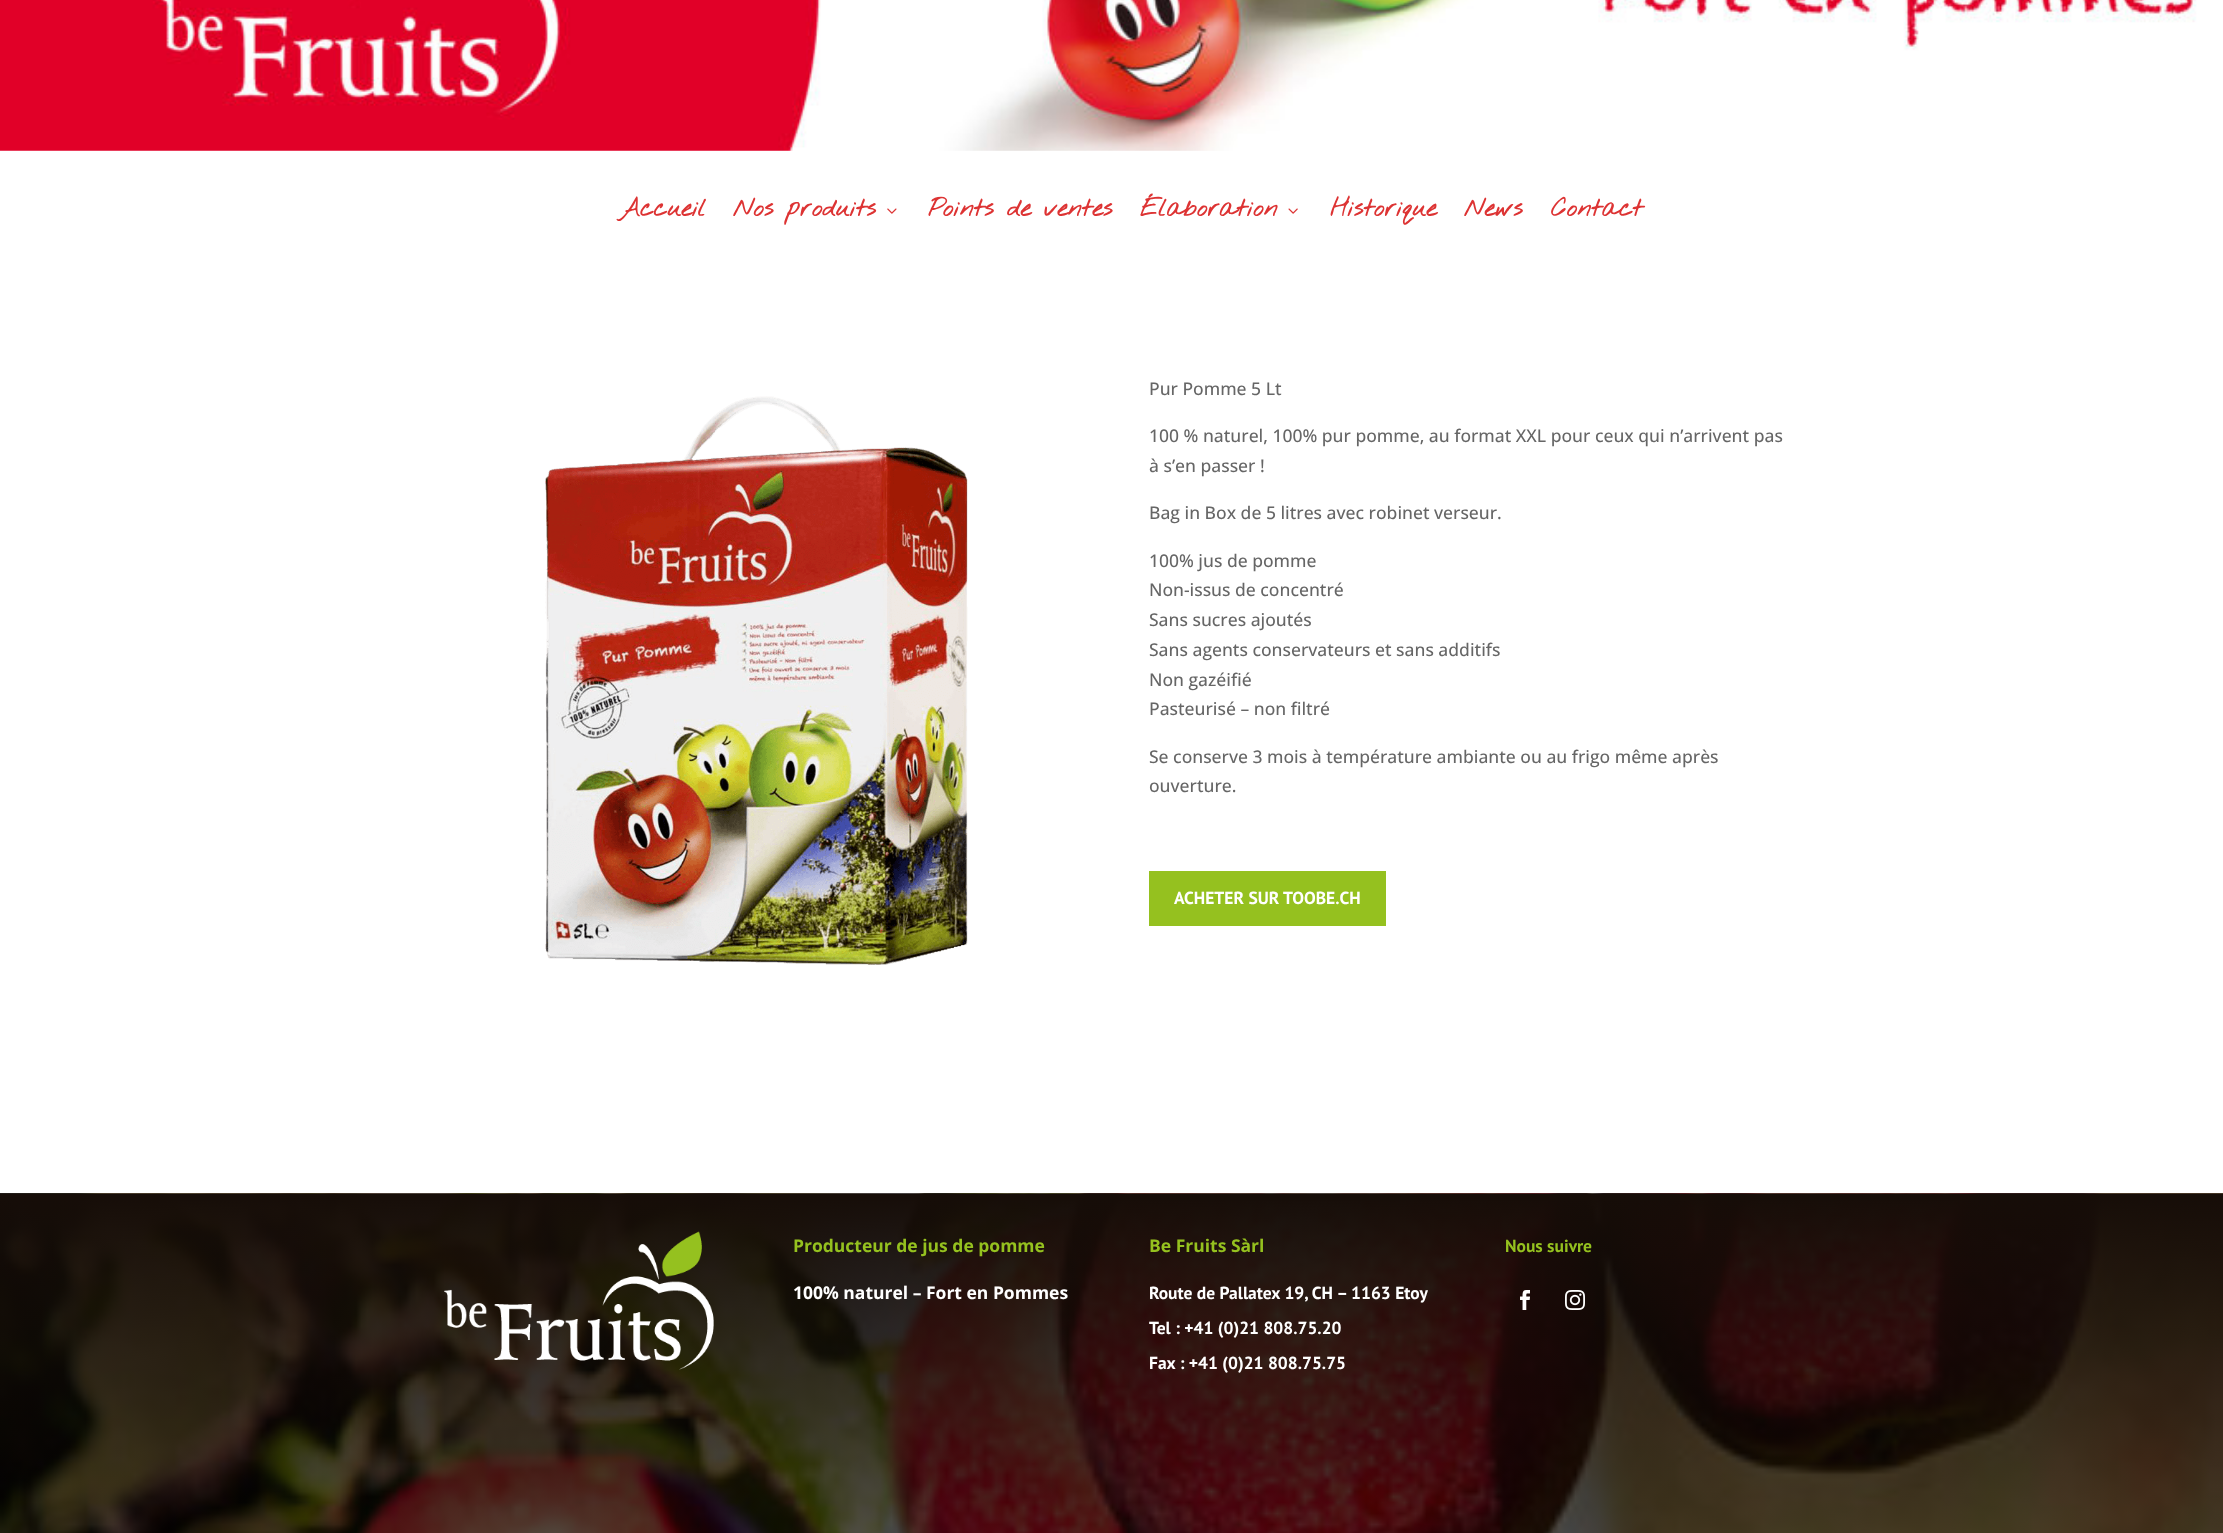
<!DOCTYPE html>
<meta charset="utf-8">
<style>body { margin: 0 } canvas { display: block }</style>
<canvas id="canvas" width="2223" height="1533"></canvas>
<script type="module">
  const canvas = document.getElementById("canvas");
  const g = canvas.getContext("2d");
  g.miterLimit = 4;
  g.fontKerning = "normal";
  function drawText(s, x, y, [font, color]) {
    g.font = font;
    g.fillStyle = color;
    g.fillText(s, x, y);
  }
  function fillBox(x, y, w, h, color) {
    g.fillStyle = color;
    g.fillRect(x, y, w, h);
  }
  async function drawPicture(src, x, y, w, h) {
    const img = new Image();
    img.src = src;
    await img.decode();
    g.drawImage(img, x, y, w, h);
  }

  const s1 = ["bold 25px Nothing You Could Do", "#DD3333"];
  const s2 = ["500 17.5px Open Sans", "#666666"];
  const s3 = ["bold 17.5px PT Sans", "#FFFFFF"];
  const s4 = ["bold 17.5px Open Sans", "#95C11F"];
  const s5 = ["bold 17.5px Open Sans", "#FFFFFF"];
  const s6 = ["bold 17.5px PT Sans", "#95C11F"];

  fillBox(0, 0, 2223, 1533, "#FFFFFF");
  await drawPicture("pic1.png", 0, 0, 2197, 151);
  drawText("Accueil", 619, 216, s1);
  drawText("Nos produits", 733, 216, s1);
  await drawPicture("pic2.png", 887, 208, 10, 6);
  drawText("Points de ventes", 928, 216, s1);
  drawText("Élaboration", 1140, 216, s1);
  await drawPicture("pic3.png", 1288, 208, 10, 6);
  drawText("Historique", 1330, 216, s1);
  drawText("News", 1464, 216, s1);
  drawText("Contact", 1551, 216, s1);
  await drawPicture("pic4.png", 545, 396, 423, 569);
  drawText("Pur Pomme 5 Lt", 1149, 395, s2);
  drawText("100 % naturel, 100% pur pomme, au format XXL pour ceux qui n’arrivent pas", 1149, 442, s2);
  drawText("à s’en passer !", 1149, 472, s2);
  drawText("Bag in Box de 5 litres avec robinet verseur.", 1149, 519, s2);
  drawText("100% jus de pomme", 1149, 567, s2);
  drawText("Non-issus de concentré", 1149, 596, s2);
  drawText("Sans sucres ajoutés", 1149, 626, s2);
  drawText("Sans agents conservateurs et sans additifs", 1149, 656, s2);
  drawText("Non gazéifié", 1149, 686, s2);
  drawText("Pasteurisé – non filtré", 1149, 715, s2);
  drawText("Se conserve 3 mois à température ambiante ou au frigo même après", 1149, 763, s2);
  drawText("ouverture.", 1149, 792, s2);
  g.fillStyle = "#95C11F";
  g.beginPath();
  g.rect(1153, 875, 229, 47);
  g.fill();
  g.strokeStyle = "#95C11F";
  g.lineWidth = 8;
  g.stroke();
  drawText("ACHETER SUR TOOBE.CH", 1174, 904, s3);
  await drawPicture("pic5.png", 0, 1193, 2223, 340);
  await drawPicture("pic6.png", 444, 1231, 270, 139);
  drawText("Producteur de jus de pomme", 793, 1252, s4);
  drawText("100% naturel – Fort en Pommes", 793, 1299, s5);
  drawText("Be Fruits Sàrl", 1149, 1252, s4);
  drawText("Route de Pallatex 19, CH – 1163 Etoy", 1149, 1299, s3);
  drawText("Tel : +41 (0)21 808.75.20", 1149, 1334, s3);
  drawText("Fax : +41 (0)21 808.75.75", 1149, 1369, s3);
  drawText("Nous suivre", 1505, 1252, s6);
  await drawPicture("pic7.png", 1520, 1290, 10, 20);
  await drawPicture("pic8.png", 1565, 1290, 20, 20);
</script>
